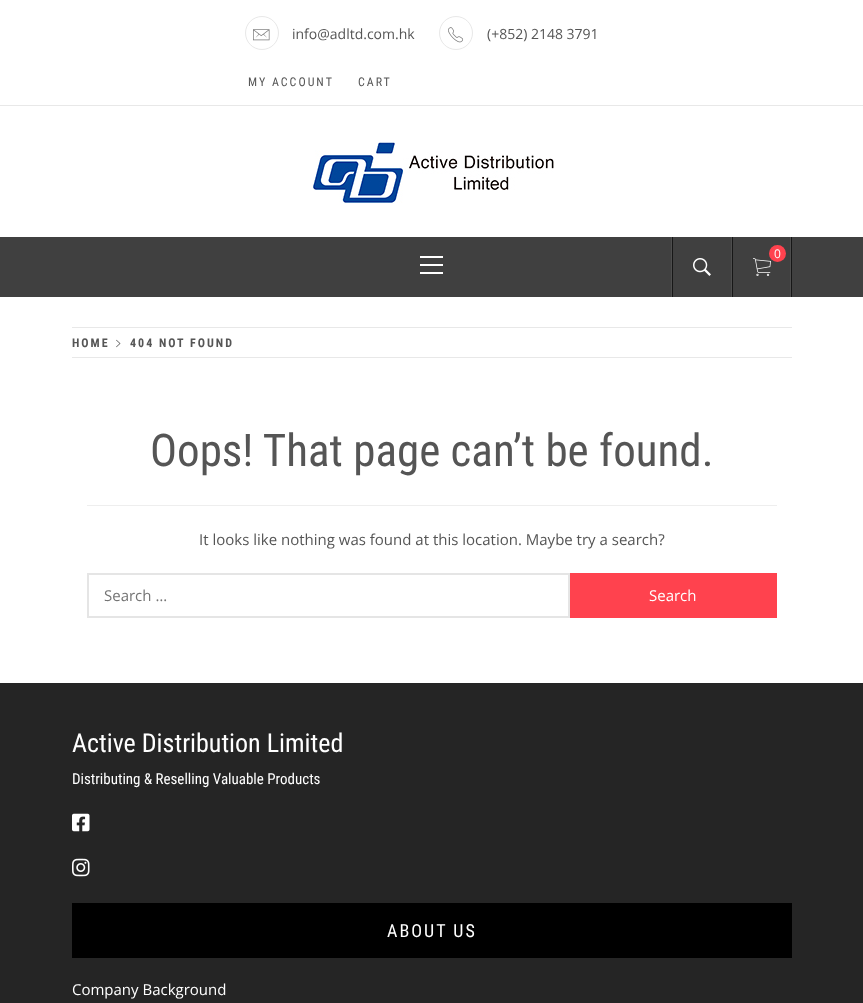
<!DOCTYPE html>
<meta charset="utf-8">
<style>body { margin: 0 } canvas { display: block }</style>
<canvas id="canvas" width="863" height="1003"></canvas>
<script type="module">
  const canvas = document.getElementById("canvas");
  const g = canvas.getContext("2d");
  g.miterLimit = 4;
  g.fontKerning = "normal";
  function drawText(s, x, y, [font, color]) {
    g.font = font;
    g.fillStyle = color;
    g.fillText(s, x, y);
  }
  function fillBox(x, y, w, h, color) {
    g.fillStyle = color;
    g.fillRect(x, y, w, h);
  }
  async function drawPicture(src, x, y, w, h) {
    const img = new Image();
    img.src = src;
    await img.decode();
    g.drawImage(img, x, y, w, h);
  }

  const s1 = ["14px Open Sans", "#555555"];
  const s2 = ["12px Roboto Condensed", "#555555"];
  const s3 = ["12px Open Sans", "#FFFFFF"];
  const s4 = ["bold 12px Roboto Condensed", "#555555"];
  const s5 = ["45px Roboto Condensed", "#555555"];
  const s6 = ["15px Open Sans", "#555555"];
  const s7 = ["15px Open Sans", "#757575"];
  const s8 = ["15px Open Sans", "#FFFFFF"];
  const s9 = ["26px Roboto Condensed", "#FFFFFF"];
  const s10 = ["15px Roboto Condensed", "#FFFFFF"];
  const s11 = ["18px Roboto Condensed", "#FFFFFF"];

  fillBox(0, 0, 863, 1003, "#FFFFFF");
  fillBox(0, 105, 863, 1, "#E8E8E8");
  g.beginPath();
  g.arc(262, 33, 16.5, 0, Math.PI * 2);
  g.strokeStyle = "#E8E8E8";
  g.stroke();
  await drawPicture("pic1.png", 253, 29, 17, 12);
  drawText("info@adltd.com.hk", 292, 39, s1);
  g.beginPath();
  g.arc(456, 33, 16.5, 0, Math.PI * 2);
  g.stroke();
  await drawPicture("pic2.png", 448, 27, 16, 16);
  drawText("(+852) 2148 3791", 487, 39, s1);
  g.letterSpacing = "2px";
  drawText("MY ACCOUNT", 248, 86, s2);
  drawText("CART", 358, 86, s2);
  await drawPicture("pic3.png", 313, 142, 241, 61);
  fillBox(0, 237, 863, 60, "#404040");
  fillBox(671, 237, 1, 60, "#4D4D4D");
  fillBox(731, 237, 1, 60, "#4D4D4D");
  fillBox(672, 237, 1, 60, "#171717");
  await drawPicture("pic4.png", 693, 258, 18, 18);
  fillBox(790, 237, 1, 60, "#4D4D4D");
  fillBox(791, 237, 1, 60, "#171717");
  fillBox(732, 237, 1, 60, "#171717");
  await drawPicture("pic5.png", 753, 258, 18, 18);
  g.fillStyle = "#FF424E";
  g.beginPath();
  g.arc(777.5, 253.5, 8.5, 0, Math.PI * 2);
  g.fill();
  g.letterSpacing = "0px";
  drawText("0", 774, 258, s3);
  fillBox(420, 264, 23, 2, "#FFFFFF");
  fillBox(420, 256, 23, 2, "#FFFFFF");
  fillBox(420, 272, 23, 2, "#FFFFFF");
  fillBox(72, 327, 720, 1, "#E8E8E8");
  fillBox(72, 357, 720, 1, "#E8E8E8");
  g.letterSpacing = "2px";
  drawText("HOME", 72, 347, s4);
  await drawPicture("pic6.png", 116, 339, 5, 9);
  drawText("404 NOT FOUND", 130, 347, s4);
  fillBox(87, 505, 690, 1, "#EEEEEE");
  g.letterSpacing = "0px";
  drawText("Oops! That page can’t be found.", 150, 466, s5);
  drawText("It looks like nothing was found at this location. Maybe try a search?", 199, 545, s6);
  g.strokeStyle = "#E5E5E5";
  g.lineWidth = 2;
  g.strokeRect(88, 574, 481, 43);
  drawText("Search …", 104, 601, s7);
  fillBox(570, 573, 207, 45, "#FF424E");
  drawText("Search", 649, 601, s8);
  fillBox(0, 683, 863, 320, "#252525");
  drawText("Active Distribution Limited", 72, 752, s9);
  drawText("Distributing & Reselling Valuable Products", 72, 784, s10);
  await drawPicture("pic7.png", 72, 813, 18, 19);
  await drawPicture("pic8.png", 72, 858, 18, 19);
  fillBox(72, 903, 720, 55, "#000000");
  g.letterSpacing = "2px";
  drawText("ABOUT US", 387, 937, s11);
  g.letterSpacing = "0px";
  drawText("Company Background", 72, 995, s8);
</script>
